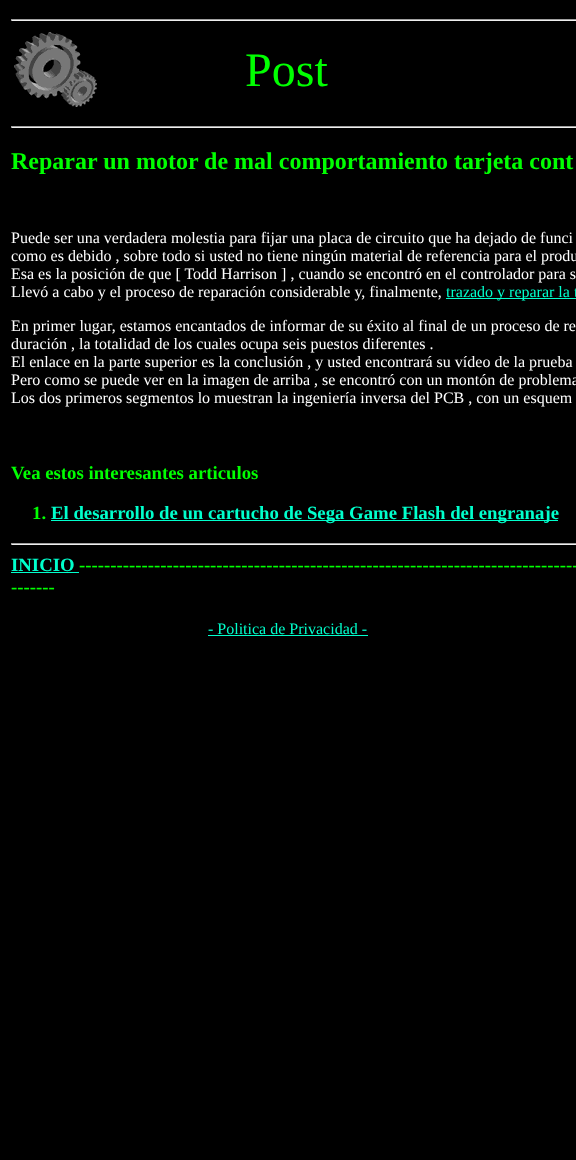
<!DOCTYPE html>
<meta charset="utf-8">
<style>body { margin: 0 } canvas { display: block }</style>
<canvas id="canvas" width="576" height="1160"></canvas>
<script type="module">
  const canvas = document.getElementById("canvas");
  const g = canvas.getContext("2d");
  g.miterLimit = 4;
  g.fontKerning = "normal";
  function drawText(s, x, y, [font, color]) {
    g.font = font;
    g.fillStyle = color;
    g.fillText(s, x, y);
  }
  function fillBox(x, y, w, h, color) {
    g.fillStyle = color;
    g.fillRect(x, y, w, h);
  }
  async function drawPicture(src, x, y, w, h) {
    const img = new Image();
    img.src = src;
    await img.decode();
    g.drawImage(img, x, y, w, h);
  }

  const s1 = ["48px Liberation Serif", "#00FF00"];
  const s2 = ["bold 24px Liberation Serif", "#00FF00"];
  const s3 = ["16px Liberation Serif", "#FFFFFF"];
  const s4 = ["16px Liberation Serif", "#00FFCC"];
  const s5 = ["bold 18.75px Liberation Serif", "#00FF00"];
  const s6 = ["bold 18.75px Liberation Serif", "#00FFCC"];

  fillBox(0, 0, 576, 1160, "#000000");
  fillBox(11, 19, 565, 1, "#9F9F9F");
  fillBox(11, 20, 565, 1, "#EEEEEE");
  fillBox(11, 19, 1, 2, "#9F9F9F");
  await drawPicture("pic1.png", 14, 32, 83, 75);
  drawText("Post", 245, 86, s1);
  fillBox(11, 126, 565, 1, "#9F9F9F");
  fillBox(11, 127, 565, 1, "#EEEEEE");
  fillBox(11, 126, 1, 2, "#9F9F9F");
  drawText("Reparar un motor de mal comportamiento tarjeta cont", 11, 169, s2);
  drawText("Puede ser una verdadera molestia para fijar una placa de circuito que ha dejado de funci", 11, 243, s3);
  drawText("como es debido , sobre todo si usted no tiene ningún material de referencia para el produ", 11, 261, s3);
  drawText("Esa es la posición de que [ Todd Harrison ] , cuando se encontró en el controlador para s", 11, 279, s3);
  drawText("Llevó a cabo y el proceso de reparación considerable y, finalmente,", 11, 297, s3);
  fillBox(446, 298, 130, 1, "#00FFCC");
  drawText("trazado y reparar la t", 446, 297, s4);
  drawText("En primer lugar, estamos encantados de informar de su éxito al final de un proceso de re", 11, 331, s3);
  drawText("duración , la totalidad de los cuales ocupa seis puestos diferentes .", 11, 349, s3);
  drawText("El enlace en la parte superior es la conclusión , y usted encontrará su vídeo de la prueba", 11, 367, s3);
  drawText("Pero como se puede ver en la imagen de arriba , se encontró con un montón de problema", 11, 385, s3);
  drawText("Los dos primeros segmentos lo muestran la ingeniería inversa del PCB , con un esquem", 11, 403, s3);
  drawText("Vea estos interesantes articulos", 11, 479, s5);
  drawText("1.", 32, 519, s5);
  fillBox(51, 520, 507, 1, "#00FFCC");
  drawText("El desarrollo de un cartucho de Sega Game Flash del engranaje", 51, 519, s6);
  fillBox(11, 543, 565, 1, "#9F9F9F");
  fillBox(11, 544, 565, 1, "#EEEEEE");
  fillBox(11, 543, 1, 2, "#9F9F9F");
  drawText("INICIO", 11, 571, s6);
  fillBox(11, 572, 68, 1, "#00FFCC");
  drawText("--------------------------------------------------------------------------------", 79, 571, s5);
  drawText("-------", 11, 593, s5);
  drawText("- Politica de Privacidad -", 208, 634, s4);
  fillBox(208, 635, 160, 1, "#00FFCC");
</script>
